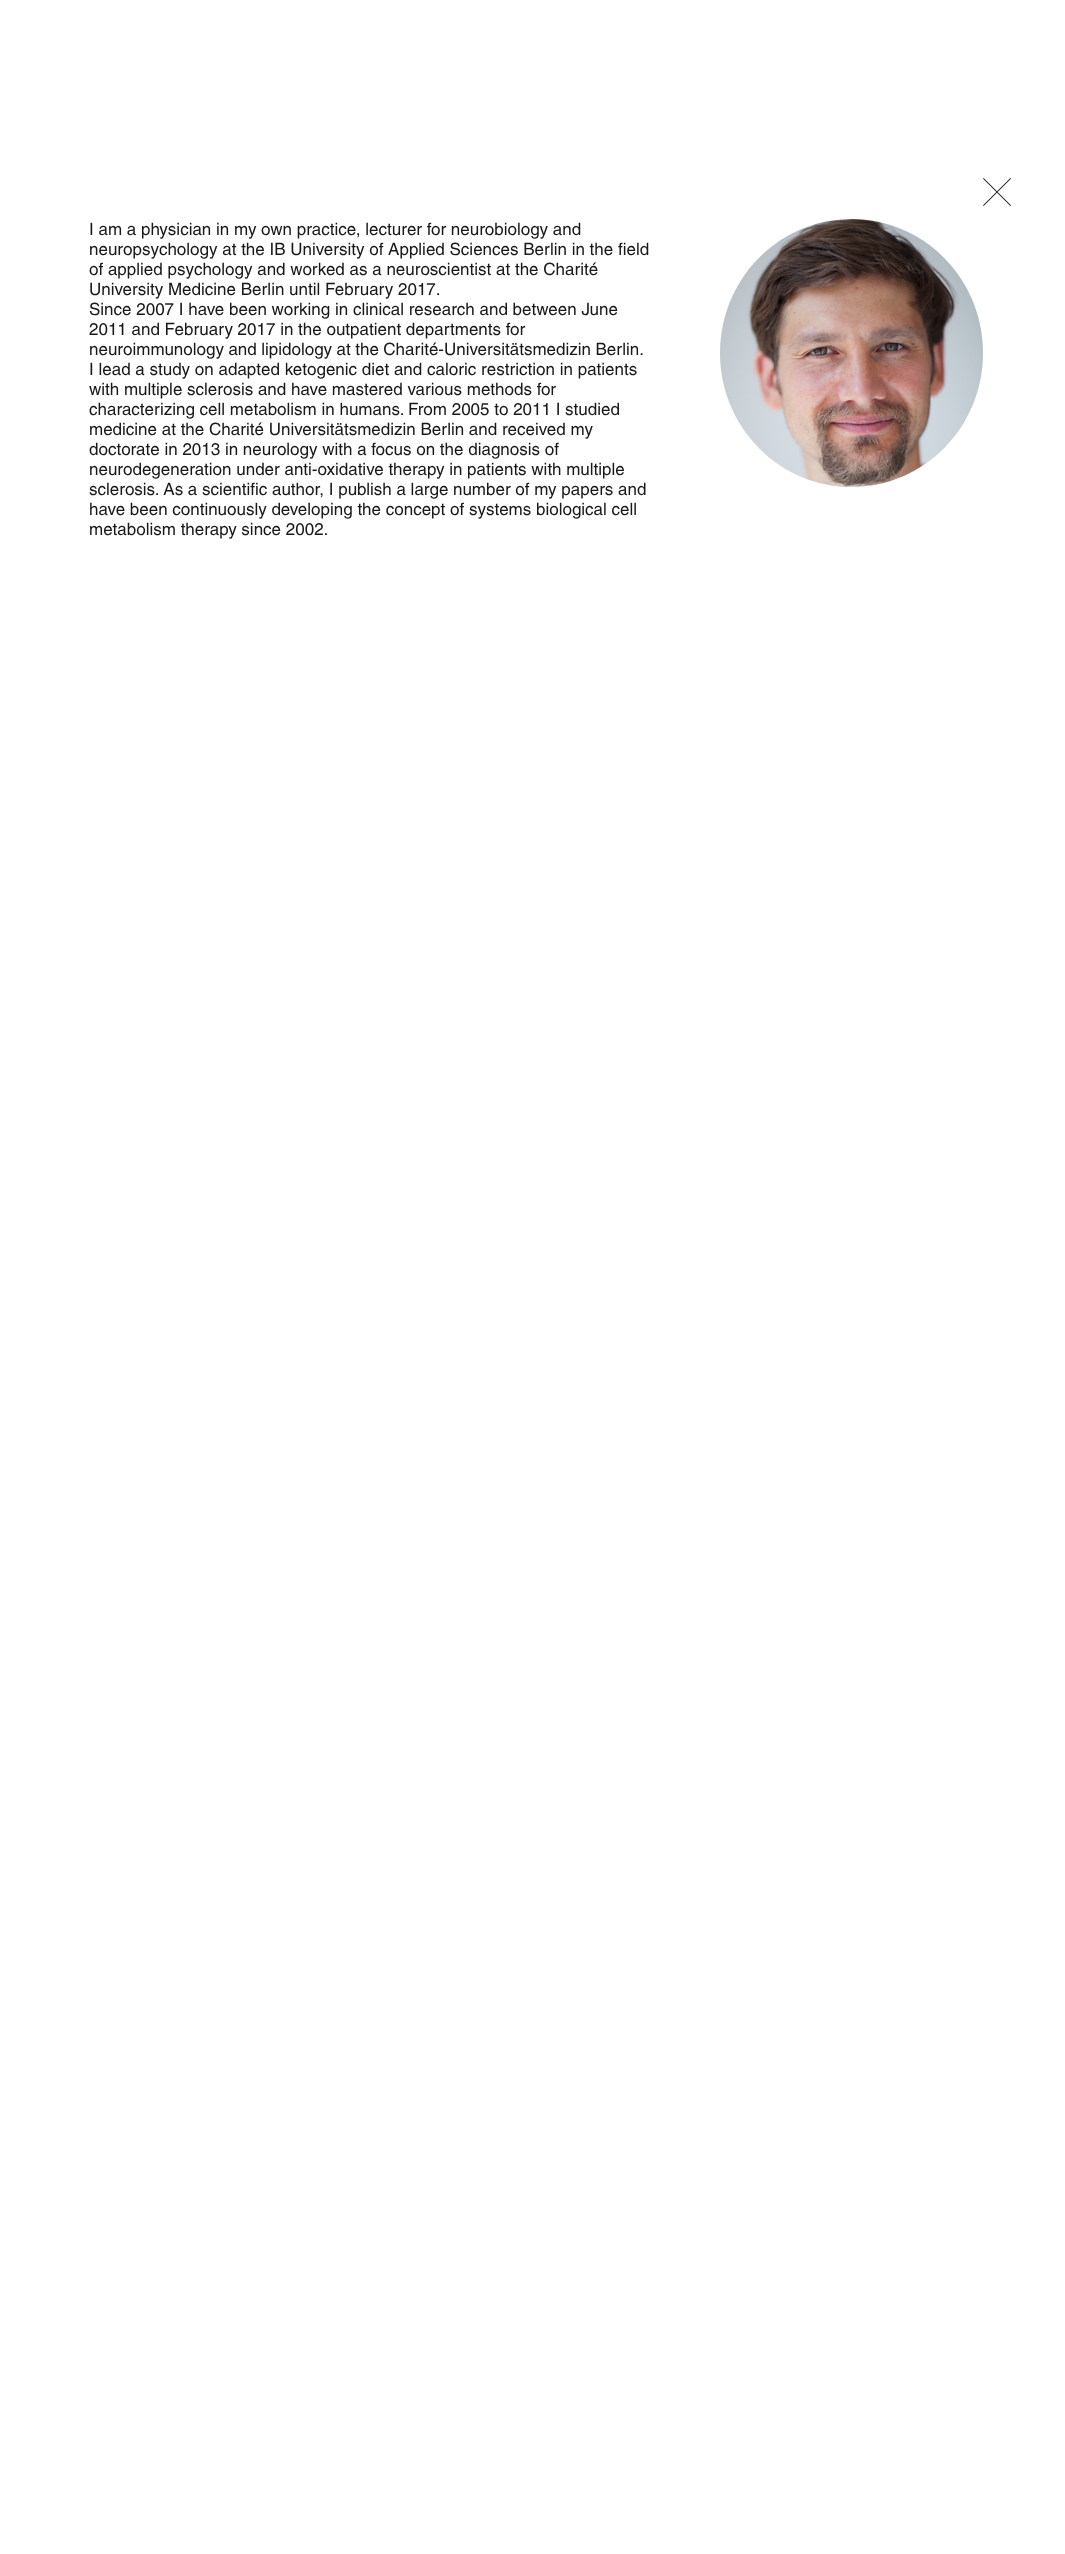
<!DOCTYPE html>
<meta charset="utf-8">
<style>body { margin: 0 } canvas { display: block }</style>
<canvas id="canvas" width="1065" height="2554"></canvas>
<script type="module">
  const canvas = document.getElementById("canvas");
  const g = canvas.getContext("2d");
  g.miterLimit = 4;
  g.fontKerning = "normal";
  function drawText(s, x, y, [font, color]) {
    g.font = font;
    g.fillStyle = color;
    g.fillText(s, x, y);
  }
  function fillBox(x, y, w, h, color) {
    g.fillStyle = color;
    g.fillRect(x, y, w, h);
  }
  async function drawPicture(src, x, y, w, h) {
    const img = new Image();
    img.src = src;
    await img.decode();
    g.drawImage(img, x, y, w, h);
  }

  const s1 = ["17px helvetica", "#181919"];

  fillBox(0, 0, 1065, 2554, "#FFFFFF");
  await drawPicture("pic1.png", 983, 178, 28, 28);
  drawText("I am a physician in my own practice, lecturer for neurobiology and", 89, 235, s1);
  drawText("neuropsychology at the IB University of Applied Sciences Berlin in the field", 89, 255, s1);
  drawText("of applied psychology and worked as a neuroscientist at the Charité", 89, 275, s1);
  drawText("University Medicine Berlin until February 2017.", 89, 295, s1);
  drawText("Since 2007 I have been working in clinical research and between June", 89, 315, s1);
  drawText("2011 and February 2017 in the outpatient departments for", 89, 335, s1);
  g.wordSpacing = "-0.25px";
  drawText("neuroimmunology and lipidology at the Charité-Universitätsmedizin Berlin.", 89, 355, s1);
  g.wordSpacing = "0px";
  drawText("I lead a study on adapted ketogenic diet and caloric restriction in patients", 89, 375, s1);
  drawText("with multiple sclerosis and have mastered various methods for", 89, 395, s1);
  drawText("characterizing cell metabolism in humans. From 2005 to 2011 I studied", 89, 415, s1);
  drawText("medicine at the Charité Universitätsmedizin Berlin and received my", 89, 435, s1);
  drawText("doctorate in 2013 in neurology with a focus on the diagnosis of", 89, 455, s1);
  drawText("neurodegeneration under anti-oxidative therapy in patients with multiple", 89, 475, s1);
  drawText("sclerosis. As a scientific author, I publish a large number of my papers and", 89, 495, s1);
  drawText("have been continuously developing the concept of systems biological cell", 89, 515, s1);
  drawText("metabolism therapy since 2002.", 89, 535, s1);
  await drawPicture("pic2.png", 720, 219, 263, 268);
</script>
